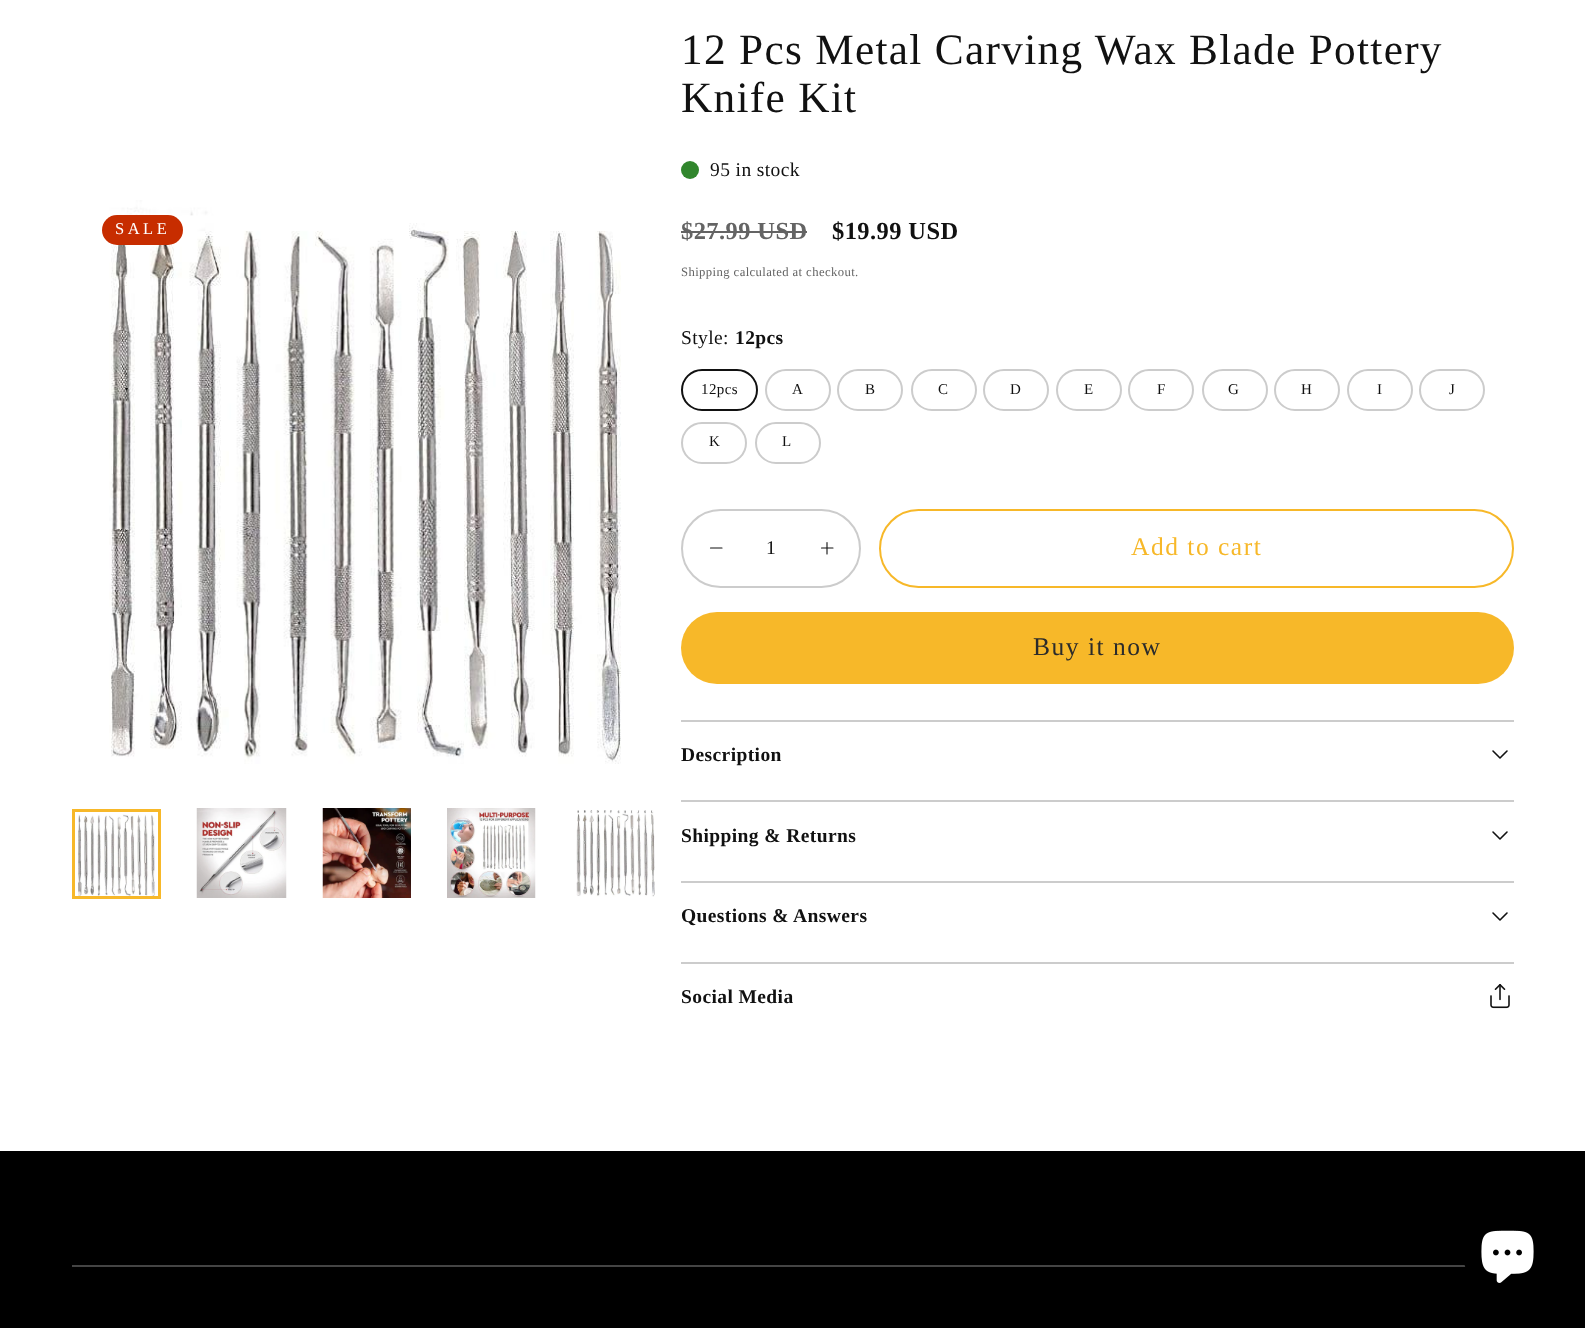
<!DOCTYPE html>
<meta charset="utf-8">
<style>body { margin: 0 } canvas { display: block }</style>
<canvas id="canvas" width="1585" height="1328"></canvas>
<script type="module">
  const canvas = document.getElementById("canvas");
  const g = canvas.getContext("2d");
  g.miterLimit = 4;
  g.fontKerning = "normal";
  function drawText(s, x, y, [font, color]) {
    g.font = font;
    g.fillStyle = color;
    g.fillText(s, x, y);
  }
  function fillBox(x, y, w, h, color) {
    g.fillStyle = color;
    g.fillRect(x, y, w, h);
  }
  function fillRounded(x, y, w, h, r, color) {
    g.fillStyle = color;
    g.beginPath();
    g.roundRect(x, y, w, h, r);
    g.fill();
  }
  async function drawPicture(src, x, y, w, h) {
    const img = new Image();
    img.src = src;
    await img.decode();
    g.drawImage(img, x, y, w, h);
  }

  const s1 = ["16.5px Liberation Serif", "#FFFFFF"];
  const s2 = ["43.3px Liberation Serif", "#111111"];
  const s3 = ["19.5px Liberation Serif", "#111111"];
  const s4 = ["bold 24.5px Liberation Serif", "#646464"];
  const s5 = ["bold 24.5px Liberation Serif", "#111111"];
  const s6 = ["12.7px Liberation Serif", "#646464"];
  const s7 = ["bold 19.5px Liberation Serif", "#111111"];
  const s8 = ["15px Liberation Serif", "#111111"];
  const s9 = ["25.5px Liberation Serif", "#F7B829"];
  const s10 = ["25.5px Liberation Serif", "#2B2B2B"];

  fillBox(0, 0, 1585, 1328, "#FFFFFF");
  await drawPicture("pic1.png", 109, 200, 512, 564);
  fillRounded(102, 215, 81, 30, 15, "#C72D00");
  g.letterSpacing = "3.5px";
  drawText("SALE", 115, 234, s1);
  await drawPicture("pic2.png", 78, 814, 77, 82);
  g.strokeStyle = "#F7B829";
  g.lineWidth = 3;
  g.strokeRect(73.5, 810.5, 86, 87);
  await drawPicture("pic3.png", 196, 808, 91, 90);
  await drawPicture("pic4.png", 322, 808, 89, 90);
  await drawPicture("pic5.png", 447, 808, 89, 90);
  await drawPicture("pic6.png", 576, 810, 79, 87);
  g.letterSpacing = "1.3px";
  drawText("12 Pcs Metal Carving Wax Blade Pottery", 681, 64, s2);
  drawText("Knife Kit", 681, 112, s2);
  g.fillStyle = "#31862D";
  g.beginPath();
  g.arc(690, 170, 9, 0, Math.PI * 2);
  g.fill();
  g.letterSpacing = "0.4px";
  drawText("95 in stock", 710, 176, s3);
  drawText("$27.99 USD", 681, 239, s4);
  fillBox(681, 231, 126, 2, "#646464");
  drawText("$19.99 USD", 832, 239, s5);
  drawText("Shipping calculated at checkout.", 681, 276, s6);
  drawText("Style:", 681, 344, s3);
  drawText("12pcs", 735, 344, s7);
  g.beginPath();
  g.roundRect(682, 370, 75, 40, 20);
  g.strokeStyle = "#111111";
  g.lineWidth = 2;
  g.stroke();
  drawText("12pcs", 701, 394, s8);
  g.beginPath();
  g.roundRect(766, 370, 64, 40, 20);
  g.strokeStyle = "#CCCCCC";
  g.stroke();
  drawText("A", 792, 394, s8);
  g.beginPath();
  g.roundRect(838, 370, 64, 40, 20);
  g.stroke();
  drawText("B", 865, 394, s8);
  g.beginPath();
  g.roundRect(912, 370, 64, 40, 20);
  g.stroke();
  drawText("C", 938, 394, s8);
  g.beginPath();
  g.roundRect(984, 370, 64, 40, 20);
  g.stroke();
  drawText("D", 1010, 394, s8);
  g.beginPath();
  g.roundRect(1057, 370, 64, 40, 20);
  g.stroke();
  drawText("E", 1084, 394, s8);
  g.beginPath();
  g.roundRect(1129, 370, 64, 40, 20);
  g.stroke();
  drawText("F", 1157, 394, s8);
  g.beginPath();
  g.roundRect(1203, 370, 64, 40, 20);
  g.stroke();
  drawText("G", 1228, 394, s8);
  g.beginPath();
  g.roundRect(1275, 370, 64, 40, 20);
  g.stroke();
  drawText("H", 1301, 394, s8);
  g.beginPath();
  g.roundRect(1348, 370, 64, 40, 20);
  g.stroke();
  drawText("I", 1377, 394, s8);
  g.beginPath();
  g.roundRect(1420, 370, 64, 40, 20);
  g.stroke();
  drawText("J", 1449, 394, s8);
  g.beginPath();
  g.roundRect(682, 423, 64, 40, 20);
  g.stroke();
  drawText("K", 709, 446, s8);
  g.beginPath();
  g.roundRect(756, 423, 64, 40, 20);
  g.stroke();
  drawText("L", 782, 446, s8);
  g.beginPath();
  g.roundRect(682, 510, 178, 77, 38.5);
  g.stroke();
  g.beginPath();
  g.moveTo(710.5, 548);
  g.lineTo(722, 548);
  g.strokeStyle = "#111111";
  g.lineWidth = 1.1;
  g.lineCap = "round";
  g.lineJoin = "round";
  g.stroke();
  drawText("1", 766, 554, s3);
  g.beginPath();
  g.moveTo(827, 542.5);
  g.lineTo(827, 554);
  g.moveTo(821.5, 548);
  g.lineTo(833, 548);
  g.stroke();
  g.beginPath();
  g.roundRect(880, 510, 633, 77, 38.5);
  g.strokeStyle = "#F7B829";
  g.lineWidth = 2;
  g.lineJoin = "miter";
  g.stroke();
  g.letterSpacing = "1.5px";
  drawText("Add to cart", 1131, 555, s9);
  fillRounded(681, 612, 833, 72, 36, "#F7B829");
  drawText("Buy it now", 1033, 655, s10);
  fillBox(681, 720, 833, 2, "#CCCCCC");
  g.letterSpacing = "0.4px";
  drawText("Description", 681, 761, s7);
  g.beginPath();
  g.moveTo(1493, 751);
  g.lineTo(1500, 758);
  g.lineTo(1507, 751);
  g.strokeStyle = "#111111";
  g.lineWidth = 1.6;
  g.lineJoin = "round";
  g.stroke();
  fillBox(681, 800, 833, 2, "#CCCCCC");
  drawText("Shipping & Returns", 681, 842, s7);
  g.beginPath();
  g.moveTo(1493, 832);
  g.lineTo(1500, 839);
  g.lineTo(1507, 832);
  g.stroke();
  fillBox(681, 881, 833, 2, "#CCCCCC");
  drawText("Questions & Answers", 681, 922, s7);
  g.beginPath();
  g.moveTo(1493, 913);
  g.lineTo(1500, 920);
  g.lineTo(1507, 913);
  g.stroke();
  fillBox(681, 962, 833, 2, "#CCCCCC");
  drawText("Social Media", 681, 1003, s7);
  await drawPicture("pic7.png", 1490, 984, 20, 25);
  fillBox(0, 1151, 1585, 177, "#000000");
  fillBox(72, 1265, 1394, 2, "#444444");
  g.fillStyle = "#000000";
  g.beginPath();
  g.arc(1508, 1253, 45, 0, Math.PI * 2);
  g.fill();
  await drawPicture("pic8.png", 1481, 1230, 53, 53);
</script>
